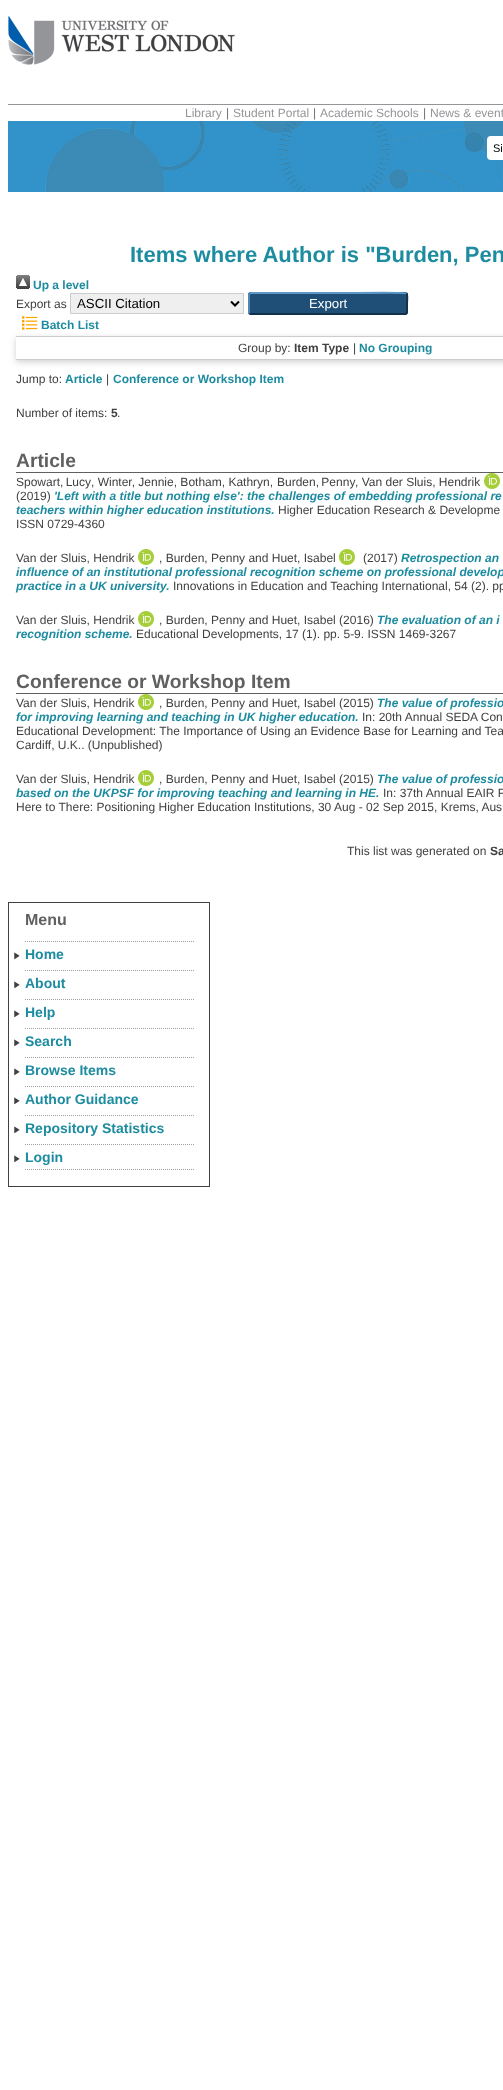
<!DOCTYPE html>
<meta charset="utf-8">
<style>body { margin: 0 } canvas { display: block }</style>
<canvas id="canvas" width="503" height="2090"></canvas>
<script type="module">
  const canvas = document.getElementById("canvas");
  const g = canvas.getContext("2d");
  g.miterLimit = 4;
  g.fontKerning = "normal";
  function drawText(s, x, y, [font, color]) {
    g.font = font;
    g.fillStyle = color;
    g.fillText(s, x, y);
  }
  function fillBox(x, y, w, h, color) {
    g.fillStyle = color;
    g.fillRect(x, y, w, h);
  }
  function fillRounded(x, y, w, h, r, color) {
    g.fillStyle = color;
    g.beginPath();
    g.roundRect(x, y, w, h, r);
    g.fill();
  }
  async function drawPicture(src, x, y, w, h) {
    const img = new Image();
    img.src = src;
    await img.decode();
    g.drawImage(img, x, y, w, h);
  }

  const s1 = ["12px Liberation Sans", "#939598"];
  const s2 = ["12px Liberation Sans", "#6D6E71"];
  const s3 = ["11px Liberation Sans", "#000000"];
  const s4 = ["bold 22px Liberation Sans", "#1E8CA0"];
  const s5 = ["bold 12px Liberation Sans", "#1E8CA0"];
  const s6 = ["12px Liberation Sans", "#404041"];
  const s7 = ["13.25px Liberation Sans", "#000000"];
  const s8 = ["13.25px Liberation Sans", "#FFFFFF"];
  const s9 = ["bold 12px Liberation Sans", "#404041"];
  const s10 = ["bold 19.25px Liberation Sans", "#606060"];
  const s11 = ["italic bold 12px Liberation Sans", "#1E8CA0"];
  const s12 = ["bold 16px Liberation Sans", "#606060"];
  const s13 = ["bold 14px Liberation Sans", "#1E8CA0"];

  fillBox(0, 0, 503, 2090, "#FFFFFF");
  fillBox(8, 104, 495, 1, "#939598");
  await drawPicture("pic1.png", 8, 16, 227, 49);
  drawText("Library", 185, 117, s1);
  drawText("|", 226, 117, s2);
  drawText("Student Portal", 233, 117, s1);
  drawText("|", 313, 117, s2);
  drawText("Academic Schools", 320, 117, s1);
  drawText("|", 423, 117, s2);
  drawText("News & event", 430, 117, s1);
  await drawPicture("pic2.png", 8, 121, 495, 71);
  fillRounded(487, 136, 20, 24, 4, "#FFFFFF");
  drawText("Si", 493, 152, s3);
  drawText("Items where Author is \"Burden, Pen", 130, 262, s4);
  await drawPicture("pic3.png", 16, 275, 14, 14);
  drawText("Up a level", 33, 289, s5);
  drawText("Export as", 16, 308, s6);
  g.fillStyle = "#EFEFEF";
  g.beginPath();
  g.rect(70.5, 293.5, 173, 20);
  g.fill();
  g.strokeStyle = "#CCCCCC";
  g.stroke();
  g.beginPath();
  g.moveTo(231, 301.5);
  g.lineTo(235, 305.5);
  g.lineTo(239, 301.5);
  g.strokeStyle = "#000000";
  g.lineWidth = 2;
  g.stroke();
  drawText("ASCII Citation", 77, 308, s7);
  fillRounded(248, 292, 160, 23, 3, "#1F4F76");
  g.beginPath();
  g.moveTo(249.5, 293.5);
  g.lineTo(251, 293);
  g.lineTo(353.5, 293);
  g.bezierCurveTo(357.5, 293, 405, 292, 406.5, 293.5);
  g.strokeStyle = "#5B97C7";
  g.stroke();
  g.beginPath();
  g.moveTo(406.5, 293.5);
  g.bezierCurveTo(408, 295, 407, 301.5, 407, 303.5);
  g.lineTo(407, 309);
  g.bezierCurveTo(407, 310.5, 407.5, 314, 405, 314);
  g.lineTo(251, 314);
  g.lineTo(249.5, 313.5);
  g.strokeStyle = "#13324A";
  g.stroke();
  g.beginPath();
  g.moveTo(249.5, 313.5);
  g.bezierCurveTo(249, 313, 249, 312.5, 249, 312);
  g.lineTo(249, 295);
  g.bezierCurveTo(249, 294.5, 249, 294, 249.5, 293.5);
  g.strokeStyle = "#5287B3";
  g.stroke();
  drawText("Export", 309, 308, s8);
  g.save();
  g.beginPath();
  g.moveTo(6, 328);
  g.lineTo(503, 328);
  g.lineTo(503, 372);
  g.lineTo(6, 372);
  g.closePath();
  g.moveTo(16, 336);
  g.lineTo(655, 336);
  g.lineTo(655, 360);
  g.lineTo(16, 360);
  g.closePath();
  g.clip("evenodd");
  g.fillStyle = "rgba(100, 100, 100, 0.3)";
  g.filter = "blur(3px)";
  g.beginPath();
  g.rect(16, 338, 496, 24);
  g.fill();
  g.filter = "none";
  g.restore();
  await drawPicture("pic4.png", 22, 316, 16, 14);
  drawText("Batch List", 41, 329, s5);
  fillBox(16, 336, 487, 1, "#CCCCCC");
  fillBox(16, 359, 487, 1, "#CCCCCC");
  drawText("Group by:", 238, 352, s6);
  drawText("Item Type", 294, 352, s9);
  drawText("|", 353, 352, s6);
  drawText("No Grouping", 359, 352, s5);
  drawText("Jump to:", 16, 383, s6);
  drawText("Article", 65, 383, s5);
  drawText("|", 106, 383, s6);
  drawText("Conference or Workshop Item", 113, 383, s5);
  drawText("Number of items:", 16, 417, s6);
  drawText("5", 111, 417, s9);
  drawText(".", 117, 417, s6);
  fillBox(16, 472, 487, 1, "#606060");
  drawText("Article", 16, 467, s10);
  g.wordSpacing = "-1px";
  drawText("Spowart, Lucy", 16, 486, s6);
  g.wordSpacing = "0px";
  drawText(", Winter, Jennie, Botham, Kathryn,", 91, 486, s6);
  g.wordSpacing = "-1px";
  drawText("Burden, Penny", 277, 486, s6);
  g.wordSpacing = "0px";
  drawText(", Van der Sluis, Hendrik", 355, 486, s6);
  await drawPicture("pic5.png", 484, 473, 16, 16);
  drawText("(2019)", 16, 500, s6);
  drawText("'Left with a title but nothing else': the challenges of embedding professional re", 54, 500, s11);
  drawText("teachers within higher education institutions.", 16, 514, s11);
  drawText("Higher Education Research & Developme", 278, 514, s6);
  drawText("ISSN 0729-4360", 16, 528, s6);
  drawText("Van der Sluis, Hendrik", 16, 562, s6);
  await drawPicture("pic5.png", 138, 549, 16, 16);
  drawText(", Burden, Penny and Huet, Isabel", 159, 562, s6);
  await drawPicture("pic5.png", 339, 549, 16, 16);
  drawText("(2017)", 363, 562, s6);
  drawText("Retrospection an", 401, 562, s11);
  drawText("influence of an institutional professional recognition scheme on professional develop", 16, 576, s11);
  drawText("practice in a UK university.", 16, 590, s11);
  drawText("Innovations in Education and Teaching International, 54 (2). pp", 173, 590, s6);
  drawText("Van der Sluis, Hendrik", 16, 624, s6);
  await drawPicture("pic5.png", 138, 611, 16, 16);
  drawText(", Burden, Penny and Huet, Isabel (2016)", 159, 624, s6);
  drawText("The evaluation of an i", 377, 624, s11);
  drawText("recognition scheme.", 16, 638, s11);
  drawText("Educational Developments, 17 (1). pp. 5-9. ISSN 1469-3267", 136, 638, s6);
  fillBox(16, 693, 487, 1, "#606060");
  drawText("Conference or Workshop Item", 16, 688, s10);
  drawText("Van der Sluis, Hendrik", 16, 707, s6);
  await drawPicture("pic5.png", 138, 694, 16, 16);
  drawText(", Burden, Penny and Huet, Isabel (2015)", 159, 707, s6);
  drawText("The value of professio", 377, 707, s11);
  drawText("for improving learning and teaching in UK higher education.", 16, 721, s11);
  drawText("In: 20th Annual SEDA Con", 362, 721, s6);
  drawText("Educational Development: The Importance of Using an Evidence Base for Learning and Tea", 16, 735, s6);
  drawText("Cardiff, U.K.. (Unpublished)", 16, 749, s6);
  drawText("Van der Sluis, Hendrik", 16, 783, s6);
  await drawPicture("pic5.png", 138, 770, 16, 16);
  drawText(", Burden, Penny and Huet, Isabel (2015)", 159, 783, s6);
  drawText("The value of professio", 377, 783, s11);
  drawText("based on the UKPSF for improving teaching and learning in HE.", 16, 797, s11);
  drawText("In: 37th Annual EAIR F", 383, 797, s6);
  drawText("Here to There: Positioning Higher Education Institutions, 30 Aug - 02 Sep 2015, Krems, Aus", 16, 811, s6);
  drawText("This list was generated on", 347, 855, s6);
  drawText("Sa", 490, 855, s9);
  g.strokeStyle = "#404040";
  g.lineWidth = 1;
  g.strokeRect(8.5, 902.5, 201, 284);
  drawText("Menu", 25, 925, s12);
  await drawPicture("pic6.png", 14, 952, 6, 7);
  g.beginPath();
  g.moveTo(25, 941.5);
  g.lineTo(195, 941.5);
  g.strokeStyle = "#9F9FA0";
  g.setLineDash([1, 1]);
  g.stroke();
  drawText("Home", 25, 959, s13);
  await drawPicture("pic6.png", 14, 981, 6, 7);
  g.beginPath();
  g.moveTo(25, 970.5);
  g.lineTo(195, 970.5);
  g.stroke();
  drawText("About", 25, 988, s13);
  await drawPicture("pic6.png", 14, 1010, 6, 7);
  g.beginPath();
  g.moveTo(25, 999.5);
  g.lineTo(195, 999.5);
  g.stroke();
  drawText("Help", 25, 1017, s13);
  await drawPicture("pic6.png", 14, 1039, 6, 7);
  g.beginPath();
  g.moveTo(25, 1028.5);
  g.lineTo(195, 1028.5);
  g.stroke();
  drawText("Search", 25, 1046, s13);
  await drawPicture("pic6.png", 14, 1068, 6, 7);
  g.beginPath();
  g.moveTo(25, 1057.5);
  g.lineTo(195, 1057.5);
  g.stroke();
  drawText("Browse Items", 25, 1075, s13);
  await drawPicture("pic6.png", 14, 1097, 6, 7);
  g.beginPath();
  g.moveTo(25, 1086.5);
  g.lineTo(195, 1086.5);
  g.stroke();
  drawText("Author Guidance", 25, 1104, s13);
  await drawPicture("pic6.png", 14, 1126, 6, 7);
  g.beginPath();
  g.moveTo(25, 1115.5);
  g.lineTo(195, 1115.5);
  g.stroke();
  drawText("Repository Statistics", 25, 1133, s13);
  await drawPicture("pic6.png", 14, 1155, 6, 7);
  g.beginPath();
  g.moveTo(25, 1144.5);
  g.lineTo(195, 1144.5);
  g.stroke();
  g.beginPath();
  g.moveTo(25, 1169.5);
  g.lineTo(195, 1169.5);
  g.stroke();
  drawText("Login", 25, 1162, s13);
</script>
